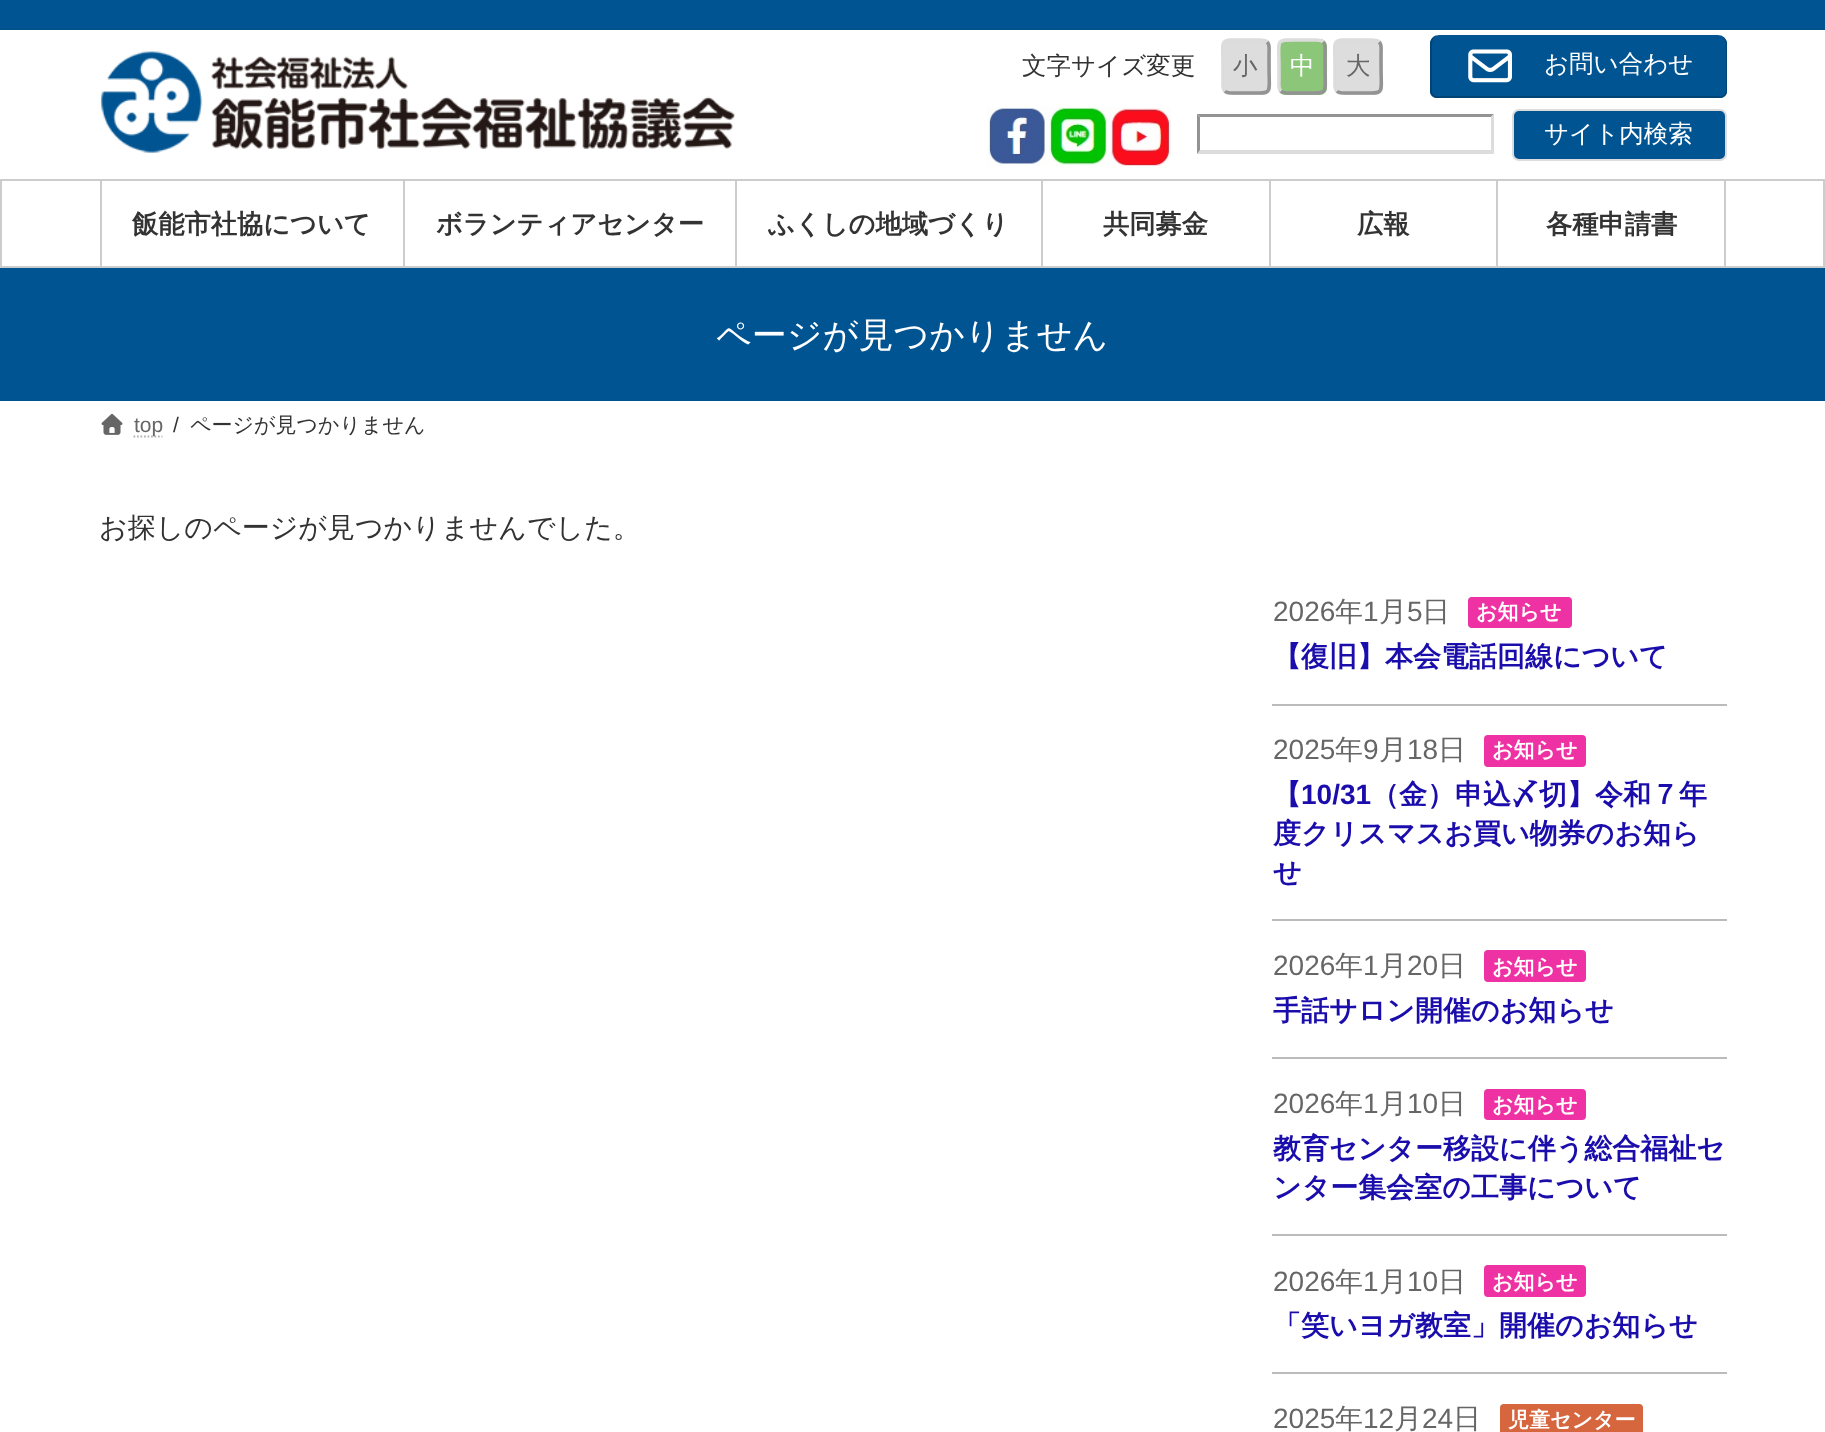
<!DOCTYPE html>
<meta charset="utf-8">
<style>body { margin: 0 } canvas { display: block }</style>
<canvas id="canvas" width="1825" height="1432"></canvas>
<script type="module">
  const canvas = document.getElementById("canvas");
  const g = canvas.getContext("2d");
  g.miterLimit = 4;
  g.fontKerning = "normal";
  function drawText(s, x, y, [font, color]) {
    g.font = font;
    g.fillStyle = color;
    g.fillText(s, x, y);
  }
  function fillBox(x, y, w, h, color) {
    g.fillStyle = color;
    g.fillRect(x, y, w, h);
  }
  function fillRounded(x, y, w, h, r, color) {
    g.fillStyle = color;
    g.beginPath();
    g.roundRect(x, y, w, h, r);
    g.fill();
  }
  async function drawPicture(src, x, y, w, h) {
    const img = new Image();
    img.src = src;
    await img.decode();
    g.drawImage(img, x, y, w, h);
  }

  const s1 = ["500 24.5px WenQuanYi Zen Hei", "#FFFFFF"];
  const s2 = ["500 24.5px WenQuanYi Zen Hei", "#333333"];
  const s3 = ["500 24.5px WenQuanYi Zen Hei", "#666666"];
  const s4 = ["bold 26.25px WenQuanYi Zen Hei", "#333333"];
  const s5 = ["500 35px WenQuanYi Zen Hei", "#FFFFFF"];
  const s6 = ["21px Liberation Sans", "#666666"];
  const s7 = ["21px Liberation Sans", "#333333"];
  const s8 = ["500 21px WenQuanYi Zen Hei", "#333333"];
  const s9 = ["500 28px WenQuanYi Zen Hei", "#333333"];
  const s10 = ["28px Liberation Sans", "#666666"];
  const s11 = ["500 28px WenQuanYi Zen Hei", "#666666"];
  const s12 = ["bold 21px WenQuanYi Zen Hei", "#FFFFFF"];
  const s13 = ["bold 28px WenQuanYi Zen Hei", "#1A0DAB"];
  const s14 = ["bold 28px Liberation Sans", "#1A0DAB"];

  fillBox(0, 0, 1825, 1432, "#FFFFFF");
  fillBox(0, 0, 1825, 28, "#005492");
  fillBox(0, 28, 1825, 2, "#00518C");
  g.fillStyle = "#005492";
  g.beginPath();
  g.roundRect(1430, 35, 297, 63, [9, 9, 7, 7]);
  g.fill();
  g.fillStyle = "#004375";
  g.beginPath();
  g.moveTo(1438, 35);
  g.lineTo(1718, 35);
  g.bezierCurveTo(1723, 35, 1727, 39, 1727, 44);
  g.lineTo(1727, 91);
  g.bezierCurveTo(1727, 95, 1724, 98, 1720, 98);
  g.lineTo(1437, 98);
  g.bezierCurveTo(1433, 98, 1430, 95, 1430, 91);
  g.lineTo(1430, 44);
  g.bezierCurveTo(1430, 39, 1434, 35, 1438, 35);
  g.closePath();
  g.moveTo(1438, 35);
  g.lineTo(1718, 35);
  g.bezierCurveTo(1722, 35, 1726, 39, 1726, 44);
  g.lineTo(1726, 91);
  g.bezierCurveTo(1726, 94, 1723, 96, 1720, 96);
  g.lineTo(1437, 96);
  g.bezierCurveTo(1434, 96, 1432, 94, 1432, 91);
  g.lineTo(1432, 44);
  g.bezierCurveTo(1432, 39, 1435, 35, 1438, 35);
  g.closePath();
  g.fill("evenodd");
  await drawPicture("pic1.png", 1468, 49, 44, 34);
  drawText("お問い合わせ", 1544, 72, s1);
  await drawPicture("pic2.png", 100, 51, 635, 102);
  drawText("文字サイズ変更", 1022, 74, s2);
  fillRounded(1222, 39, 49, 56, 7, "#DDDDDD");
  g.beginPath();
  g.moveTo(1267, 42);
  g.bezierCurveTo(1270, 44.5, 1269, 49.5, 1269, 52.5);
  g.lineTo(1269, 66.5);
  g.bezierCurveTo(1269, 96, 1274, 93, 1246, 93);
  g.lineTo(1234.5, 93);
  g.bezierCurveTo(1231.5, 93, 1227, 93.5, 1225, 91);
  g.strokeStyle = "#939393";
  g.lineWidth = 3.5;
  g.stroke();
  g.beginPath();
  g.moveTo(1225, 91);
  g.bezierCurveTo(1222, 88.5, 1223, 83.5, 1223, 80.5);
  g.lineTo(1223, 66.5);
  g.bezierCurveTo(1223, 37, 1218, 40, 1246, 40);
  g.lineTo(1257.5, 40);
  g.bezierCurveTo(1260.5, 40, 1265, 39.5, 1267, 42);
  g.strokeStyle = "#DCDCDC";
  g.stroke();
  drawText("小", 1233, 74, s3);
  fillRounded(1278, 39, 49, 56, 7, "#8CC779");
  g.beginPath();
  g.moveTo(1323, 42);
  g.bezierCurveTo(1326, 44.5, 1325, 49.5, 1325, 52.5);
  g.lineTo(1325, 66.5);
  g.bezierCurveTo(1325, 96, 1330, 93, 1302, 93);
  g.lineTo(1290.5, 93);
  g.bezierCurveTo(1287.5, 93, 1283, 93.5, 1281, 91);
  g.strokeStyle = "#939393";
  g.stroke();
  g.beginPath();
  g.moveTo(1281, 91);
  g.bezierCurveTo(1278, 88.5, 1279, 83.5, 1279, 80.5);
  g.lineTo(1279, 66.5);
  g.bezierCurveTo(1279, 37, 1274, 40, 1302, 40);
  g.lineTo(1313.5, 40);
  g.bezierCurveTo(1316.5, 40, 1321, 39.5, 1323, 42);
  g.strokeStyle = "#DCDCDC";
  g.stroke();
  drawText("中", 1290, 74, s1);
  fillRounded(1334, 39, 49, 56, 7, "#DDDDDD");
  g.beginPath();
  g.moveTo(1379, 42);
  g.bezierCurveTo(1382, 44.5, 1381, 49.5, 1381, 52.5);
  g.lineTo(1381, 66.5);
  g.bezierCurveTo(1381, 96, 1386, 93, 1358, 93);
  g.lineTo(1346.5, 93);
  g.bezierCurveTo(1343.5, 93, 1339, 93.5, 1337, 91);
  g.strokeStyle = "#939393";
  g.stroke();
  g.beginPath();
  g.moveTo(1337, 91);
  g.bezierCurveTo(1334, 88.5, 1335, 83.5, 1335, 80.5);
  g.lineTo(1335, 66.5);
  g.bezierCurveTo(1335, 37, 1330, 40, 1358, 40);
  g.lineTo(1369.5, 40);
  g.bezierCurveTo(1372.5, 40, 1377, 39.5, 1379, 42);
  g.strokeStyle = "#DCDCDC";
  g.stroke();
  drawText("大", 1346, 74, s3);
  await drawPicture("pic3.png", 987, 107, 60, 59);
  await drawPicture("pic4.png", 1048, 107, 62, 59);
  await drawPicture("pic5.png", 1109, 107, 62, 61);
  g.fillStyle = "#939393";
  g.beginPath();
  g.moveTo(1197, 114);
  g.lineTo(1494, 114);
  g.lineTo(1491, 117);
  g.lineTo(1200, 117);
  g.closePath();
  g.fill();
  g.fillStyle = "#DCDCDC";
  g.beginPath();
  g.moveTo(1494, 114);
  g.lineTo(1494, 154);
  g.lineTo(1491, 150);
  g.lineTo(1491, 117);
  g.closePath();
  g.fill();
  g.beginPath();
  g.moveTo(1494, 154);
  g.lineTo(1197, 154);
  g.lineTo(1200, 150);
  g.lineTo(1491, 150);
  g.closePath();
  g.fill();
  g.fillStyle = "#939393";
  g.beginPath();
  g.moveTo(1197, 154);
  g.lineTo(1197, 114);
  g.lineTo(1200, 117);
  g.lineTo(1200, 150);
  g.closePath();
  g.fill();
  g.fillStyle = "#005492";
  g.beginPath();
  g.roundRect(1513, 110, 213, 50, 6);
  g.fill();
  g.lineWidth = 2;
  g.stroke();
  drawText("サイト内検索", 1544, 142, s1);
  g.strokeStyle = "#CCCCCC";
  g.strokeRect(1, 180, 1823, 87);
  fillBox(403, 180, 2, 86, "#CCCCCC");
  fillBox(100, 180, 2, 86, "#CCCCCC");
  drawText("飯能市社協について", 132, 233, s4);
  fillBox(735, 180, 2, 86, "#CCCCCC");
  drawText("ボランティアセンター", 436, 233, s4);
  fillBox(1041, 180, 2, 86, "#CCCCCC");
  drawText("ふくしの地域づくり", 768, 233, s4);
  fillBox(1269, 180, 2, 86, "#CCCCCC");
  drawText("共同募金", 1103, 233, s4);
  fillBox(1496, 180, 2, 86, "#CCCCCC");
  drawText("広報", 1357, 233, s4);
  fillBox(1724, 180, 2, 86, "#CCCCCC");
  drawText("各種申請書", 1546, 233, s4);
  fillBox(0, 268, 1825, 133, "#005492");
  drawText("ページが見つかりません", 716, 347, s5);
  await drawPicture("pic6.png", 101, 413, 22, 22);
  g.beginPath();
  g.moveTo(133.5, 436.5);
  g.lineTo(162.5, 436.5);
  g.strokeStyle = "#B3B3B3";
  g.lineWidth = 1.8;
  g.setLineDash([1.75, 1.75]);
  g.stroke();
  drawText("top", 134, 432, s6);
  drawText("/", 173, 432, s7);
  drawText("ページが見つかりません", 190, 432, s8);
  drawText("お探しのページが見つかりませんでした。", 99, 537, s9);
  fillBox(1272, 704, 455, 2, "#BBBBBB");
  drawText("2026", 1273, 621, s10);
  drawText("年", 1335, 621, s11);
  drawText("1", 1363, 621, s10);
  drawText("月", 1379, 621, s11);
  drawText("5", 1407, 621, s10);
  drawText("日", 1422, 621, s11);
  fillRounded(1468, 597, 104, 31, 4, "#EF32A3");
  drawText("お知らせ", 1476, 619, s12);
  drawText("【復旧】本会電話回線について", 1273, 666, s13);
  fillBox(1272, 919, 455, 2, "#BBBBBB");
  drawText("2025", 1273, 759, s10);
  drawText("年", 1335, 759, s11);
  drawText("9", 1363, 759, s10);
  drawText("月", 1379, 759, s11);
  drawText("18", 1407, 759, s10);
  drawText("日", 1438, 759, s11);
  fillRounded(1484, 735, 102, 32, 4, "#EF32A3");
  drawText("お知らせ", 1492, 757, s12);
  drawText("【", 1273, 804, s13);
  drawText("10/31", 1301, 804, s14);
  drawText("（金）申込〆切】令和７年", 1371, 804, s13);
  drawText("度クリスマスお買い物券のお知ら", 1273, 843, s13);
  drawText("せ", 1273, 882, s13);
  fillBox(1272, 1057, 455, 2, "#BBBBBB");
  drawText("2026", 1273, 975, s10);
  drawText("年", 1335, 975, s11);
  drawText("1", 1363, 975, s10);
  drawText("月", 1379, 975, s11);
  drawText("20", 1407, 975, s10);
  drawText("日", 1438, 975, s11);
  fillRounded(1484, 950, 102, 32, 4, "#EF32A3");
  drawText("お知らせ", 1492, 974, s12);
  drawText("手話サロン開催のお知らせ", 1273, 1020, s13);
  fillBox(1272, 1234, 455, 2, "#BBBBBB");
  drawText("2026", 1273, 1113, s10);
  drawText("年", 1335, 1113, s11);
  drawText("1", 1363, 1113, s10);
  drawText("月", 1379, 1113, s11);
  drawText("10", 1407, 1113, s10);
  drawText("日", 1438, 1113, s11);
  fillRounded(1484, 1089, 102, 31, 4, "#EF32A3");
  drawText("お知らせ", 1492, 1112, s12);
  drawText("教育センター移設に伴う総合福祉セ", 1273, 1158, s13);
  drawText("ンター集会室の工事について", 1273, 1197, s13);
  fillBox(1272, 1372, 455, 2, "#BBBBBB");
  drawText("2026", 1273, 1291, s10);
  drawText("年", 1335, 1291, s11);
  drawText("1", 1363, 1291, s10);
  drawText("月", 1379, 1291, s11);
  drawText("10", 1407, 1291, s10);
  drawText("日", 1438, 1291, s11);
  fillRounded(1484, 1265, 102, 32, 4, "#EF32A3");
  drawText("お知らせ", 1492, 1289, s12);
  drawText("「笑いヨガ教室」開催のお知らせ", 1273, 1335, s13);
  drawText("2025", 1273, 1428, s10);
  drawText("年", 1335, 1428, s11);
  drawText("12", 1363, 1428, s10);
  drawText("月", 1394, 1428, s11);
  drawText("24", 1422, 1428, s10);
  drawText("日", 1453, 1428, s11);
  fillRounded(1500, 1404, 143, 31, 4, "#D6663E");
  drawText("児童センター", 1508, 1427, s12);
</script>
